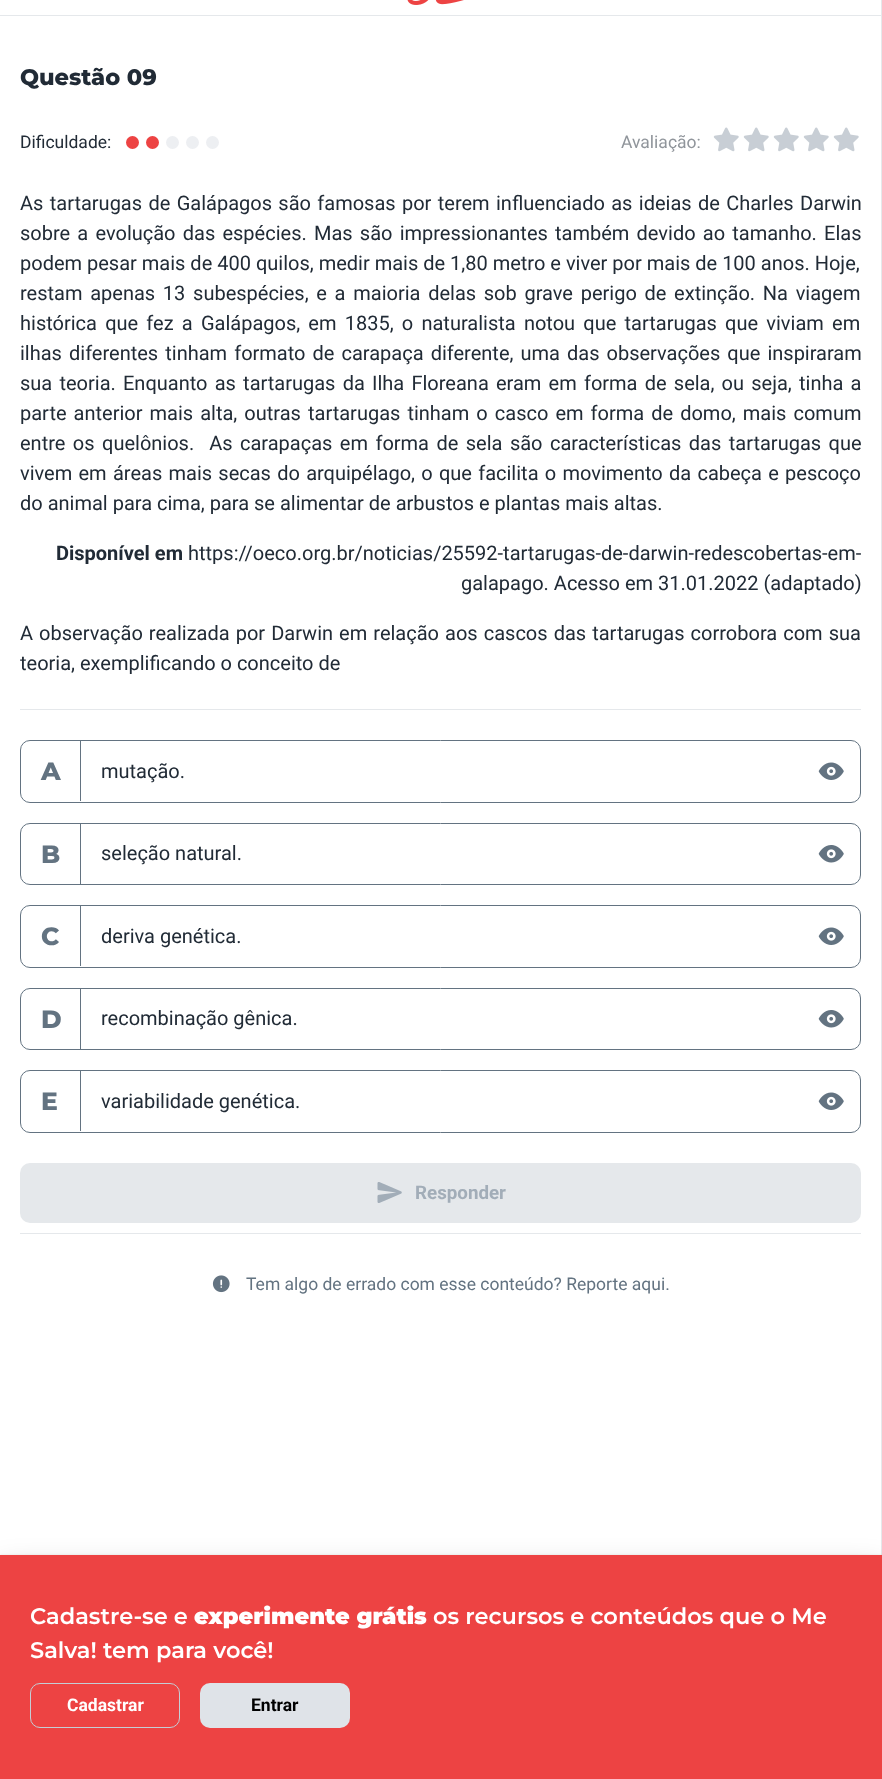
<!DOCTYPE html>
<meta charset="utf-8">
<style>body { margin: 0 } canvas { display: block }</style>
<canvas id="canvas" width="882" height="1779"></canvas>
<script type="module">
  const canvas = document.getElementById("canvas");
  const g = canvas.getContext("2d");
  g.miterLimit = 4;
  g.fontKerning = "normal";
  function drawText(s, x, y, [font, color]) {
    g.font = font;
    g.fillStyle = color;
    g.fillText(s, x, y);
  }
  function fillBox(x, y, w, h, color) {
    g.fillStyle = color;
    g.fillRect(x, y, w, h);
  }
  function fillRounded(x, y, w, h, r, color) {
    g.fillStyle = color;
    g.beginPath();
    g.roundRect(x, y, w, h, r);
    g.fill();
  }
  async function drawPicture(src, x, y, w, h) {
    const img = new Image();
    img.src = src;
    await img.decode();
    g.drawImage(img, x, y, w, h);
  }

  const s1 = ["800 22.5px Montserrat", "#212B36"];
  const s2 = ["17.5px Roboto", "#212B36"];
  const s3 = ["17.5px Roboto", "#90959B"];
  const s4 = ["20px Roboto", "#212B36"];
  const s5 = ["bold 20px Roboto", "#212B36"];
  const s6 = ["800 25px Montserrat", "#637381"];
  const s7 = ["bold 18.75px Roboto", "#A2ADB8"];
  const s8 = ["17.5px Roboto", "#637381"];
  const s9 = ["600 22.5px Montserrat", "#FFFFFF"];
  const s10 = ["900 22.5px Montserrat", "#FFFFFF"];
  const s11 = ["bold 17.5px Roboto", "#FFFFFF"];
  const s12 = ["bold 17.5px Roboto", "#000000"];

  fillBox(0, 0, 882, 1779, "#FFFFFF");
  fillBox(881, 0, 1, 1555, "#E5E8EB");
  await drawPicture("pic1.png", 407, 0, 57, 5);
  fillBox(0, 15, 881, 1, "#E5E8EB");
  drawText("Questão 09", 20, 85, s1);
  drawText("Dificuldade:", 20, 148, s2);
  g.fillStyle = "#ED4343";
  g.beginPath();
  g.arc(132.5, 142.5, 6.5, 0, Math.PI * 2);
  g.fill();
  g.beginPath();
  g.arc(152.5, 142.5, 6.5, 0, Math.PI * 2);
  g.fill();
  g.fillStyle = "#EDEFF2";
  g.beginPath();
  g.arc(172.5, 142.5, 6.5, 0, Math.PI * 2);
  g.fill();
  g.beginPath();
  g.arc(192.5, 142.5, 6.5, 0, Math.PI * 2);
  g.fill();
  g.beginPath();
  g.arc(212.5, 142.5, 6.5, 0, Math.PI * 2);
  g.fill();
  drawText("Avaliação:", 621, 148, s3);
  await drawPicture("pic2.png", 713, 127, 26, 25);
  await drawPicture("pic2.png", 743, 127, 26, 25);
  await drawPicture("pic2.png", 773, 127, 26, 25);
  await drawPicture("pic2.png", 803, 127, 26, 25);
  await drawPicture("pic2.png", 833, 127, 26, 25);
  g.wordSpacing = "1.4px";
  drawText("As tartarugas de Galápagos são famosas por terem influenciado as ideias de Charles Darwin", 20, 210, s4);
  g.wordSpacing = "2.25px";
  drawText("sobre a evolução das espécies. Mas são impressionantes também devido ao tamanho. Elas", 20, 240, s4);
  g.wordSpacing = "0px";
  drawText("podem pesar mais de 400 quilos, medir mais de 1,80 metro e viver por mais de 100 anos. Hoje,", 20, 270, s4);
  g.wordSpacing = "2.75px";
  drawText("restam apenas 13 subespécies, e a maioria delas sob grave perigo de extinção. Na viagem", 20, 300, s4);
  g.wordSpacing = "3.25px";
  drawText("histórica que fez a Galápagos, em 1835, o naturalista notou que tartarugas que viviam em", 20, 330, s4);
  g.wordSpacing = "2.1px";
  drawText("ilhas diferentes tinham formato de carapaça diferente, uma das observações que inspiraram", 20, 360, s4);
  g.wordSpacing = "2.25px";
  drawText("sua teoria. Enquanto as tartarugas da Ilha Floreana eram em forma de sela, ou seja, tinha a", 20, 390, s4);
  g.wordSpacing = "2.1px";
  drawText("parte anterior mais alta, outras tartarugas tinham o casco em forma de domo, mais comum", 20, 420, s4);
  g.wordSpacing = "2.5px";
  drawText("entre os quelônios.  As carapaças em forma de sela são características das tartarugas que", 20, 450, s4);
  g.wordSpacing = "1.3px";
  drawText("vivem em áreas mais secas do arquipélago, o que facilita o movimento da cabeça e pescoço", 20, 480, s4);
  g.wordSpacing = "0px";
  drawText("do animal para cima, para se alimentar de arbustos e plantas mais altas.", 20, 510, s4);
  drawText("Disponível em", 56, 560, s5);
  drawText("https://oeco.org.br/noticias/25592-tartarugas-de-darwin-redescobertas-em-", 188, 560, s4);
  drawText("galapago. Acesso em 31.01.2022 (adaptado)", 461, 590, s4);
  g.wordSpacing = "1.1px";
  drawText("A observação realizada por Darwin em relação aos cascos das tartarugas corrobora com sua", 20, 640, s4);
  g.wordSpacing = "0px";
  drawText("teoria, exemplificando o conceito de", 20, 670, s4);
  fillBox(20, 709, 841, 1, "#E5E8EB");
  g.beginPath();
  g.roundRect(20.5, 740.5, 840, 62, 9.5);
  g.strokeStyle = "#637381";
  g.stroke();
  fillBox(80, 741, 1, 60, "#637381");
  drawText("A", 41, 780, s6);
  drawText("mutação.", 101, 778, s4);
  await drawPicture("pic3.png", 818, 762, 26, 18);
  g.beginPath();
  g.roundRect(20.5, 823.5, 840, 61, 9.5);
  g.stroke();
  fillBox(80, 824, 1, 60, "#637381");
  drawText("B", 41, 863, s6);
  drawText("seleção natural.", 101, 860, s4);
  await drawPicture("pic4.png", 818, 845, 26, 18);
  g.beginPath();
  g.roundRect(20.5, 905.5, 840, 62, 9.5);
  g.stroke();
  fillBox(80, 906, 1, 60, "#637381");
  drawText("C", 41, 945, s6);
  drawText("deriva genética.", 101, 943, s4);
  await drawPicture("pic3.png", 818, 927, 26, 18);
  g.beginPath();
  g.roundRect(20.5, 988.5, 840, 61, 9.5);
  g.stroke();
  fillBox(80, 989, 1, 60, "#637381");
  drawText("D", 41, 1028, s6);
  drawText("recombinação gênica.", 101, 1025, s4);
  await drawPicture("pic4.png", 818, 1010, 26, 18);
  g.beginPath();
  g.roundRect(20.5, 1070.5, 840, 62, 9.5);
  g.stroke();
  fillBox(80, 1071, 1, 60, "#637381");
  drawText("E", 41, 1110, s6);
  drawText("variabilidade genética.", 101, 1108, s4);
  await drawPicture("pic3.png", 818, 1092, 26, 18);
  fillRounded(20, 1163, 841, 60, 10, "#E5E8EB");
  await drawPicture("pic5.png", 377, 1182, 25, 21);
  drawText("Responder", 415, 1199, s7);
  fillBox(20, 1233, 841, 1, "#E5E8EB");
  await drawPicture("pic6.png", 212, 1275, 18, 18);
  drawText("Tem algo de errado com esse conteúdo? Reporte aqui.", 246, 1290, s8);
  g.fillStyle = "rgba(0, 0, 0, 0.24)";
  g.filter = "blur(15px)";
  g.beginPath();
  g.rect(0, 1570, 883, 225);
  g.fill();
  g.filter = "none";
  g.fillStyle = "rgba(146, 159, 142, 0.24)";
  g.filter = "blur(1px)";
  g.beginPath();
  g.rect(0, 1555, 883, 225);
  g.fill();
  g.filter = "none";
  fillBox(0, 1555, 882, 224, "#ED4343");
  drawText("Cadastre-se e", 30, 1624, s9);
  drawText("experimente grátis", 194, 1624, s10);
  drawText("os recursos e conteúdos que o Me", 433, 1624, s9);
  drawText("Salva! tem para você!", 30, 1658, s9);
  g.beginPath();
  g.roundRect(30.5, 1683.5, 149, 44, 9.5);
  g.strokeStyle = "#C4CDD5";
  g.stroke();
  drawText("Cadastrar", 67, 1711, s11);
  fillRounded(200, 1683, 150, 45, 10, "#DFE3E8");
  drawText("Entrar", 251, 1711, s12);
</script>
